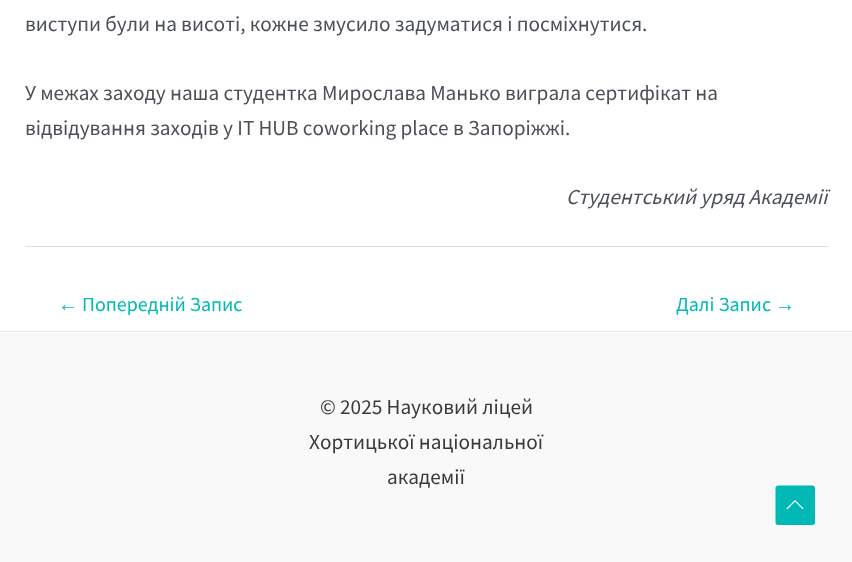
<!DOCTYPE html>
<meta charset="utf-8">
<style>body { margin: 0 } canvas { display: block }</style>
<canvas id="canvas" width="852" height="562"></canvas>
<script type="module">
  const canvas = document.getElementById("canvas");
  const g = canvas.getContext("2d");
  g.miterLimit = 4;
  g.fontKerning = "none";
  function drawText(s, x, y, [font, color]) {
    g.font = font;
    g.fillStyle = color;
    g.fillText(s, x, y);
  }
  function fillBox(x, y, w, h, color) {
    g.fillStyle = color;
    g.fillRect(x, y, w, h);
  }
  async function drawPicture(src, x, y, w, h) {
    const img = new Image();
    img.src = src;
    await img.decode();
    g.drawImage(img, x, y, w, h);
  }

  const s1 = ["21.25px Source Sans Pro", "#4B4F58"];
  const s2 = ["italic 21.25px Source Sans Pro", "#4B4F58"];
  const s3 = ["20px Liberation Sans", "#00B9B5"];
  const s4 = ["20px Source Sans Pro", "#00B9B5"];
  const s5 = ["21.25px Source Sans Pro", "#3A3A3A"];

  fillBox(0, 0, 852, 562, "#FFFFFF");
  drawText("виступи були на висоті, кожне змусило задуматися і посміхнутися.", 25, 31, s1);
  drawText("У межах заходу наша студентка Мирослава Манько виграла сертифікат на", 25, 100, s1);
  drawText("відвідування заходів у IT HUB сoworking place в Запоріжжі.", 25, 135, s1);
  drawText("Студентський уряд Академії", 566, 204, s2);
  fillBox(25, 246, 803, 1, "#DDDDDD");
  drawText("←", 58, 311, s3);
  drawText("Попередній Запис", 82, 311, s4);
  drawText("Далі Запис", 676, 311, s4);
  drawText("→", 775, 311, s3);
  fillBox(0, 333, 852, 229, "#F9F9F9");
  fillBox(0, 331, 852, 1, "#E6E6E6");
  drawText("© 2025 Науковий ліцей", 320, 414, s5);
  drawText("Хортицької національної", 309, 449, s5);
  drawText("академії", 387, 484, s5);
  g.fillStyle = "#00B9B5";
  g.beginPath();
  g.moveTo(812.5, 525);
  g.lineTo(778, 525);
  g.bezierCurveTo(776.5, 525, 775.5, 524, 775.5, 522.5);
  g.lineTo(775.5, 488);
  g.bezierCurveTo(775.5, 486.5, 776.5, 485.5, 778, 485.5);
  g.lineTo(812.5, 485.5);
  g.bezierCurveTo(814, 485.5, 815, 486.5, 815, 488);
  g.lineTo(815, 522.5);
  g.bezierCurveTo(815, 524, 814, 525, 812.5, 525);
  g.closePath();
  g.fill();
  await drawPicture("pic1.png", 786, 500, 18, 10);
</script>
